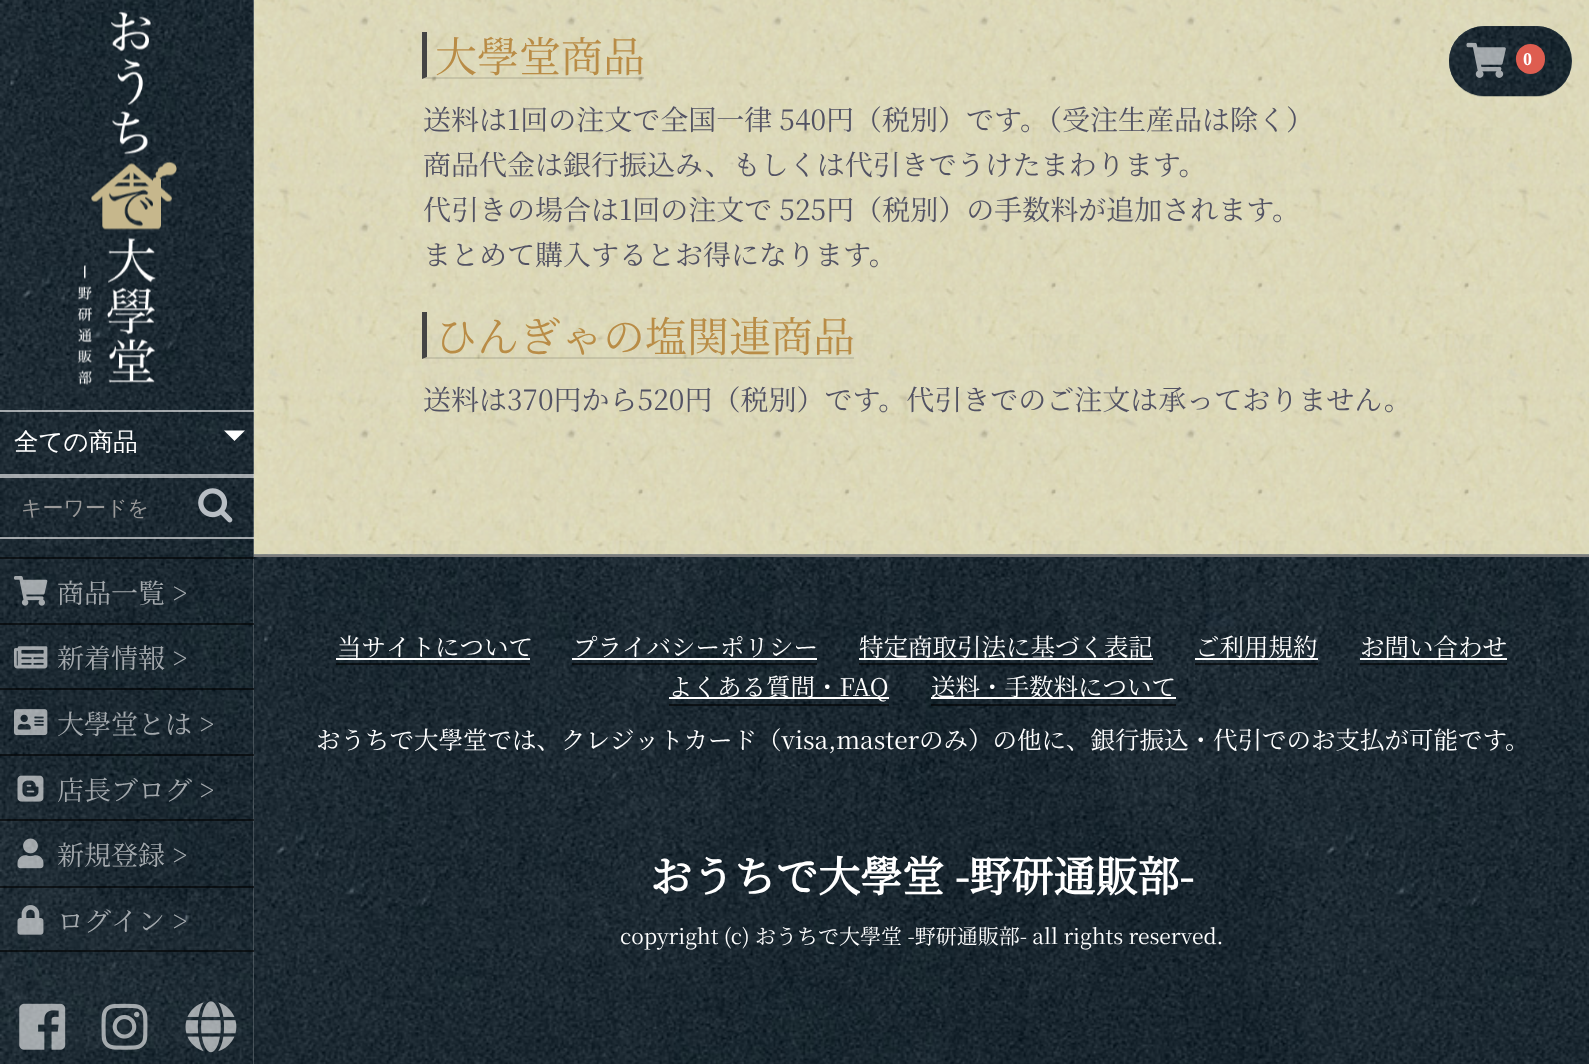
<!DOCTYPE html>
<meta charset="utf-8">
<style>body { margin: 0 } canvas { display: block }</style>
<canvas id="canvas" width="1589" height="1064"></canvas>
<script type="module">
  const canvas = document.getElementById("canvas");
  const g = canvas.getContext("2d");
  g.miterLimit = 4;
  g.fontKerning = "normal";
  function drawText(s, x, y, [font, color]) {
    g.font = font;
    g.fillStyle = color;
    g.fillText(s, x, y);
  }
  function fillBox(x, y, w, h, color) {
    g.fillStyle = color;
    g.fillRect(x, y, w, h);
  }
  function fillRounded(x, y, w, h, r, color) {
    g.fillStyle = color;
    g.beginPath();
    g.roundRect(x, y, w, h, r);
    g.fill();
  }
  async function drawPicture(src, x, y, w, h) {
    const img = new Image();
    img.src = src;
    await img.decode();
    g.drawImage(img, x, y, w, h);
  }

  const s1 = ["200 42px Noto Serif JP", "#B98C46"];
  const s2 = ["200 28px Noto Serif JP", "#525263"];
  const s3 = ["bold 18px Liberation Serif", "#FFFFFF"];
  const s4 = ["500 24.5px WenQuanYi Zen Hei", "#FFFFFF"];
  const s5 = ["500 21px WenQuanYi Zen Hei", "#999999"];
  const s6 = ["200 27px Noto Serif JP", "#A4A9AD"];
  const s7 = ["200 24.5px Noto Serif JP", "#FFFFFF"];
  const s8 = ["bold 42px Noto Serif JP", "#FFFFFF"];
  const s9 = ["200 21px Noto Serif JP", "#FFFFFF"];

  fillBox(0, 0, 1589, 1064, "#FFFFFF");
  await drawPicture("pic1.png", 253, 0, 1336, 555);
  g.fillStyle = "rgba(0, 0, 0, 0.1)";
  g.beginPath();
  g.moveTo(644, 79);
  g.lineTo(422, 79);
  g.lineTo(427, 77);
  g.lineTo(644, 77);
  g.closePath();
  g.fill();
  g.fillStyle = "#444444";
  g.beginPath();
  g.moveTo(422, 79);
  g.lineTo(422, 32);
  g.lineTo(427, 32);
  g.lineTo(427, 77);
  g.closePath();
  g.fill();
  drawText("大學堂商品", 435, 72, s1);
  drawText("送料は1回の注文で全国一律 540円（税別）です。（受注生産品は除く）", 423, 130, s2);
  drawText("商品代金は銀行振込み、もしくは代引きでうけたまわります。", 423, 175, s2);
  drawText("代引きの場合は1回の注文で 525円（税別）の手数料が追加されます。", 423, 220, s2);
  drawText("まとめて購入するとお得になります。", 423, 265, s2);
  g.fillStyle = "rgba(0, 0, 0, 0.1)";
  g.beginPath();
  g.moveTo(854, 359);
  g.lineTo(422, 359);
  g.lineTo(427, 357);
  g.lineTo(854, 357);
  g.closePath();
  g.fill();
  g.fillStyle = "#444444";
  g.beginPath();
  g.moveTo(422, 359);
  g.lineTo(422, 312);
  g.lineTo(427, 312);
  g.lineTo(427, 357);
  g.closePath();
  g.fill();
  drawText("ひんぎゃの塩関連商品", 435, 352, s1);
  drawText("送料は370円から520円（税別）です。代引きでのご注文は承っておりません。", 423, 410, s2);
  await drawPicture("pic16.png", 253, 554, 1336, 510);
  await drawPicture("pic2.png", 0, 0, 254, 1064);
  fillRounded(1449, 26, 123, 70, 35, "#303E47");
  await drawPicture("pic3.png", 1449, 26, 123, 71);
  await drawPicture("pic4.png", 1466, 42, 40, 36);
  fillRounded(1516, 44, 29, 30, 14.5, "#DE5D50");
  drawText("0", 1523, 65, s3);
  await drawPicture("pic5.png", 77, 11, 100, 374);
  fillBox(0, 410, 254, 2, "rgba(255, 255, 255, 0.6)");
  fillBox(0, 474, 254, 2, "rgba(255, 255, 255, 0.6)");
  drawText("全ての商品", 14, 450, s4);
  g.beginPath();
  g.moveTo(224, 430.5);
  g.lineTo(245, 430.5);
  g.lineTo(234.5, 441);
  g.closePath();
  g.fill();
  fillBox(0, 476, 254, 2, "rgba(255, 255, 255, 0.6)");
  fillBox(0, 537, 254, 2, "rgba(255, 255, 255, 0.6)");
  drawText("キーワードを", 21, 515, s5);
  await drawPicture("pic6.png", 198, 488, 35, 35);
  fillBox(0, 557, 254, 2, "rgba(0, 0, 0, 0.6)");
  fillBox(0, 623, 254, 2, "rgba(0, 0, 0, 0.6)");
  await drawPicture("pic7.png", 14, 576, 34, 30);
  drawText("商品一覧 >", 57, 603, s6);
  fillBox(0, 688, 254, 2, "rgba(0, 0, 0, 0.6)");
  await drawPicture("pic8.png", 14, 646, 34, 23);
  drawText("新着情報 >", 57, 668, s6);
  fillBox(0, 754, 254, 2, "rgba(0, 0, 0, 0.6)");
  await drawPicture("pic9.png", 14, 709, 34, 27);
  drawText("大學堂とは >", 57, 734, s6);
  fillBox(0, 819, 254, 2, "rgba(0, 0, 0, 0.6)");
  await drawPicture("pic10.png", 17, 775, 27, 27);
  drawText("店長ブログ >", 57, 800, s6);
  fillBox(0, 886, 254, 2, "rgba(0, 0, 0, 0.6)");
  await drawPicture("pic11.png", 17, 838, 27, 31);
  drawText("新規登録 >", 57, 865, s6);
  fillBox(0, 950, 254, 2, "rgba(0, 0, 0, 0.6)");
  await drawPicture("pic12.png", 17, 905, 27, 30);
  drawText("ログイン >", 57, 931, s6);
  await drawPicture("pic13.png", 19, 1003, 47, 47);
  await drawPicture("pic14.png", 101, 1003, 47, 47);
  await drawPicture("pic15.png", 185, 1001, 52, 52);
  fillBox(254, 555, 1335, 2, "#7D7D7D");
  fillBox(336, 663, 194, 2, "rgba(0, 0, 0, 0.6)");
  drawText("当サイトについて", 337, 656, s7);
  fillBox(336, 658, 194, 2, "#FFFFFF");
  fillBox(572, 663, 245, 2, "rgba(0, 0, 0, 0.6)");
  drawText("プライバシーポリシー", 573, 656, s7);
  fillBox(572, 658, 245, 2, "#FFFFFF");
  fillBox(859, 663, 294, 2, "rgba(0, 0, 0, 0.6)");
  drawText("特定商取引法に基づく表記", 859, 656, s7);
  fillBox(859, 658, 294, 2, "#FFFFFF");
  fillBox(1195, 663, 123, 2, "rgba(0, 0, 0, 0.6)");
  drawText("ご利用規約", 1195, 656, s7);
  fillBox(1195, 658, 123, 2, "#FFFFFF");
  fillBox(1360, 663, 147, 2, "rgba(0, 0, 0, 0.6)");
  drawText("お問い合わせ", 1360, 656, s7);
  fillBox(1360, 658, 147, 2, "#FFFFFF");
  fillBox(669, 704, 220, 2, "rgba(0, 0, 0, 0.6)");
  fillBox(669, 697, 220, 2, "#FFFFFF");
  drawText("よくある質問・FAQ", 668, 696, s7);
  fillBox(931, 704, 245, 2, "rgba(0, 0, 0, 0.6)");
  fillBox(931, 697, 245, 2, "#FFFFFF");
  drawText("送料・手数料について", 931, 696, s7);
  drawText("おうちで大學堂では、クレジットカード（visa,masterのみ）の他に、銀行振込・代引でのお支払が可能です。", 316, 749, s7);
  drawText("おうちで大學堂 -野研通販部-", 650, 892, s8);
  drawText("copyright (c) おうちで大學堂 -野研通販部- all rights reserved.", 620, 944, s9);
</script>
